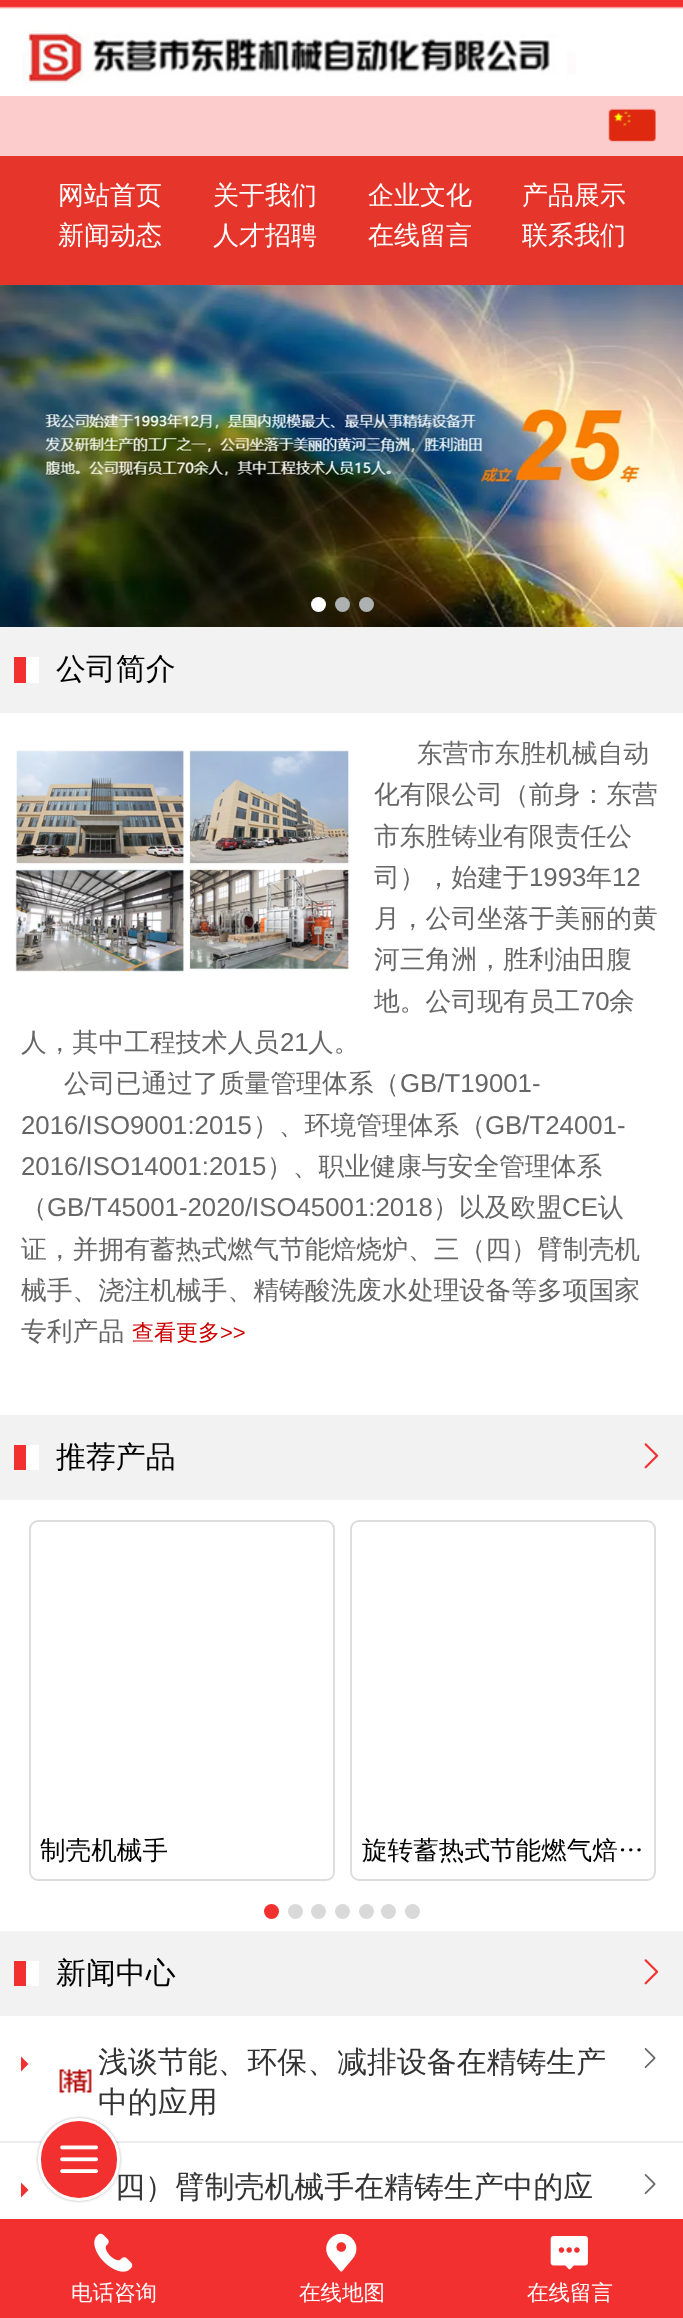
<!DOCTYPE html>
<meta charset="utf-8">
<style>body { margin: 0 } canvas { display: block }</style>
<canvas id="canvas" width="683" height="2318"></canvas>
<script type="module">
  const canvas = document.getElementById("canvas");
  const g = canvas.getContext("2d");
  g.miterLimit = 4;
  g.fontKerning = "normal";
  function drawText(s, x, y, [font, color]) {
    g.font = font;
    g.fillStyle = color;
    g.fillText(s, x, y);
  }
  function fillBox(x, y, w, h, color) {
    g.fillStyle = color;
    g.fillRect(x, y, w, h);
  }
  async function drawPicture(src, x, y, w, h) {
    const img = new Image();
    img.src = src;
    await img.decode();
    g.drawImage(img, x, y, w, h);
  }

  const s1 = ["500 29.9px WenQuanYi Zen Hei", "#333333"];
  const s2 = ["500 26px WenQuanYi Zen Hei", "#FFFFFF"];
  const s3 = ["500 29.9px WenQuanYi Zen Hei", "#000000"];
  const s4 = ["500 25.8px WenQuanYi Zen Hei", "#666666"];
  const s5 = ["25.8px Liberation Sans", "#666666"];
  const s6 = ["500 22px WenQuanYi Zen Hei", "#CC0000"];
  const s7 = ["22px Liberation Sans", "#CC0000"];
  const s8 = ["500 25.6px WenQuanYi Zen Hei", "#000000"];
  const s9 = ["500 21.5px WenQuanYi Zen Hei", "#FFFFFF"];

  fillBox(0, 0, 683, 2318, "#FCCBCB");
  await drawPicture("pic1.png", 0, 0, 683, 96);
  await drawPicture("pic2.png", 608, 108, 48, 34);
  fillBox(0, 2016, 683, 203, "#FFFFFF");
  fillBox(0, 2141, 683, 2, "#ECECEC");
  g.fillStyle = "rgba(0, 0, 0, 0.3)";
  g.filter = "blur(1.5px)";
  g.beginPath();
  g.roundRect(38, 2118, 82, 83, 41);
  g.fill();
  g.filter = "none";
  drawText("四）臂制壳机械手在精铸生产中的应", 115, 2197, s1);
  g.fillStyle = "#F23030";
  g.beginPath();
  g.roundRect(39.5, 2119.5, 79, 80, 39.5);
  g.fill();
  g.strokeStyle = "#FFFFFF";
  g.lineWidth = 3;
  g.stroke();
  await drawPicture("pic3.png", 60, 2145, 38, 28);
  fillBox(0, 156, 683, 129, "#E6352B");
  drawText("网站首页", 58, 204, s2);
  drawText("关于我们‍", 213, 204, s2);
  drawText("企业文化", 368, 204, s2);
  drawText("产品展示", 522, 204, s2);
  drawText("新闻动态", 58, 244, s2);
  drawText("人才招聘‍", 213, 244, s2);
  drawText("在线留言", 368, 244, s2);
  drawText("联系我们", 522, 244, s2);
  await drawPicture("pic4.png", 0, 285, 683, 342);
  g.beginPath();
  g.arc(318.5, 604.5, 7.5, 0, Math.PI * 2);
  g.fill();
  g.fillStyle = "#ADB1B1";
  g.beginPath();
  g.arc(342.5, 604.5, 7.5, 0, Math.PI * 2);
  g.fill();
  g.beginPath();
  g.arc(366.5, 604.5, 7.5, 0, Math.PI * 2);
  g.fill();
  fillBox(0, 627, 683, 86, "#F2F2F2");
  fillBox(14, 657, 12, 26, "#F23030");
  fillBox(26, 657, 13, 26, "#FFFFFF");
  drawText("公司简介", 56, 679, s3);
  fillBox(0, 713, 683, 702, "#FFFFFF");
  drawText("东营市东胜机械自动", 417, 762, s4);
  drawText("化有限公司（前身：东营", 374, 803, s4);
  drawText("市东胜铸业有限责任公", 374, 845, s4);
  drawText("司），始建于", 374, 886, s4);
  drawText("1993", 529, 886, s5);
  drawText("年", 586, 886, s4);
  drawText("12", 612, 886, s5);
  drawText("月，公司坐落于美丽的黄", 374, 927, s4);
  drawText("河三角洲，胜利油田腹", 374, 968, s4);
  drawText("地。公司现有员工", 374, 1010, s4);
  drawText("70", 581, 1010, s5);
  drawText("余", 609, 1010, s4);
  drawText("人，其中工程技术人员", 21, 1051, s4);
  drawText("21", 280, 1051, s5);
  drawText("人。", 308, 1051, s4);
  drawText("公司已通过了质量管理体系（", 64, 1092, s4);
  drawText("GB/T19001-", 400, 1092, s5);
  drawText("2016/ISO9001:2015", 21, 1134, s5);
  drawText("）、环境管理体系（", 253, 1134, s4);
  drawText("GB/T24001-", 485, 1134, s5);
  drawText("2016/ISO14001:2015", 21, 1175, s5);
  drawText("）、职业健康与安全管理体系", 267, 1175, s4);
  drawText("（", 21, 1216, s4);
  drawText("GB/T45001-2020/ISO45001:2018", 47, 1216, s5);
  drawText("）以及欧盟", 433, 1216, s4);
  drawText("CE", 562, 1216, s5);
  drawText("认", 598, 1216, s4);
  drawText("证，并拥有蓄热式燃气节能焙烧炉、三（四）臂制壳机", 21, 1258, s4);
  drawText("械手、浇注机械手、精铸酸洗废水处理设备等多项国家", 21, 1299, s4);
  drawText("专利产品", 21, 1340, s4);
  drawText("查看更多", 132, 1340, s6);
  drawText(">>", 220, 1340, s7);
  await drawPicture("pic5.png", 15, 750, 336, 222);
  fillBox(0, 1415, 683, 85, "#F2F2F2");
  fillBox(14, 1445, 12, 25, "#F23030");
  fillBox(26, 1445, 13, 25, "#FFFFFF");
  drawText("推荐产品", 56, 1467, s3);
  await drawPicture("pic6.png", 644, 1443, 15, 26);
  fillBox(0, 1500, 683, 431, "#FFFFFF");
  g.beginPath();
  g.roundRect(30, 1521, 304, 359, 8);
  g.strokeStyle = "#DDDDDD";
  g.lineWidth = 2;
  g.stroke();
  drawText("制壳机械手", 40, 1859, s8);
  g.beginPath();
  g.roundRect(351, 1521, 304, 359, 8);
  g.stroke();
  drawText("旋转蓄热式节能燃气焙…", 362, 1859, s8);
  g.fillStyle = "#F23030";
  g.beginPath();
  g.arc(271.5, 1911.5, 7.5, 0, Math.PI * 2);
  g.fill();
  g.fillStyle = "#D9D9D9";
  g.beginPath();
  g.arc(295.5, 1911.5, 7.5, 0, Math.PI * 2);
  g.fill();
  g.beginPath();
  g.arc(318.5, 1911.5, 7.5, 0, Math.PI * 2);
  g.fill();
  g.beginPath();
  g.arc(342.5, 1911.5, 7.5, 0, Math.PI * 2);
  g.fill();
  g.beginPath();
  g.arc(366.5, 1911.5, 7.5, 0, Math.PI * 2);
  g.fill();
  g.beginPath();
  g.arc(388.5, 1911.5, 7.5, 0, Math.PI * 2);
  g.fill();
  g.beginPath();
  g.arc(412.5, 1911.5, 7.5, 0, Math.PI * 2);
  g.fill();
  fillBox(0, 1931, 683, 85, "#F2F2F2");
  fillBox(14, 1961, 12, 25, "#F23030");
  fillBox(26, 1961, 13, 25, "#FFFFFF");
  drawText("新闻中心", 56, 1983, s3);
  await drawPicture("pic6.png", 644, 1959, 15, 26);
  g.fillStyle = "#F23030";
  g.beginPath();
  g.moveTo(21, 2071.5);
  g.lineTo(21, 2056.5);
  g.lineTo(28.5, 2064);
  g.closePath();
  g.fill();
  await drawPicture("pic7.png", 59, 2068, 33, 26);
  drawText("浅谈节能、环保、减排设备在精铸生产", 98, 2072, s1);
  drawText("中的应用", 98, 2112, s1);
  await drawPicture("pic8.png", 644, 2048, 12, 21);
  g.fillStyle = "#F23030";
  g.beginPath();
  g.moveTo(21, 2197.5);
  g.lineTo(21, 2182.5);
  g.lineTo(28.5, 2190);
  g.closePath();
  g.fill();
  await drawPicture("pic8.png", 644, 2174, 12, 21);
  fillBox(0, 2219, 683, 99, "#F23030");
  await drawPicture("pic9.png", 94, 2233, 39, 39);
  drawText("电话咨询", 71, 2300, s9);
  await drawPicture("pic10.png", 326, 2233, 31, 39);
  drawText("在线地图", 299, 2300, s9);
  await drawPicture("pic11.png", 550, 2236, 38, 34);
  drawText("在线留言", 527, 2300, s9);
</script>
